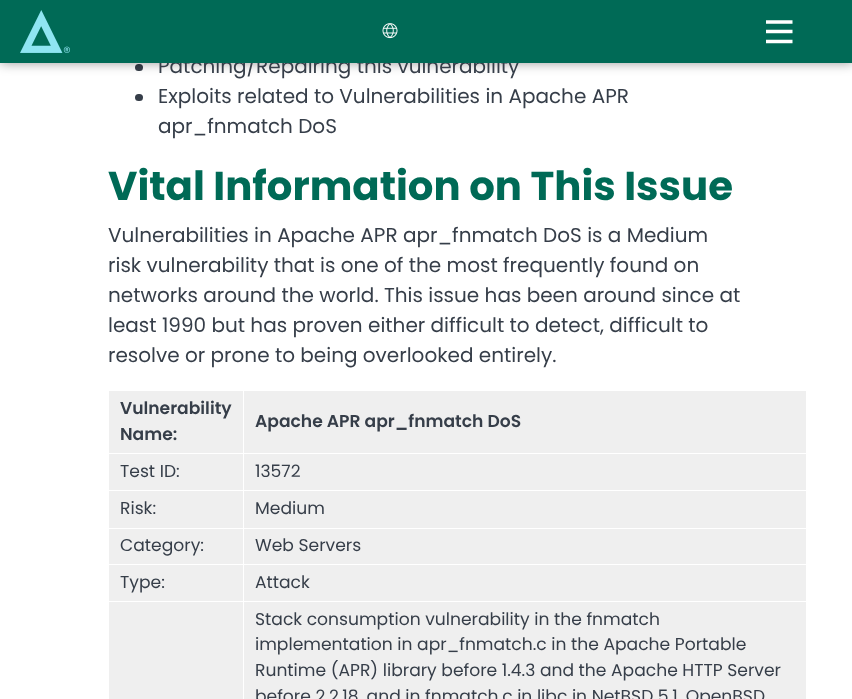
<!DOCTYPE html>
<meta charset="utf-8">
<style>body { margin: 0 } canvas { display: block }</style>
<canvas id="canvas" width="852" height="699"></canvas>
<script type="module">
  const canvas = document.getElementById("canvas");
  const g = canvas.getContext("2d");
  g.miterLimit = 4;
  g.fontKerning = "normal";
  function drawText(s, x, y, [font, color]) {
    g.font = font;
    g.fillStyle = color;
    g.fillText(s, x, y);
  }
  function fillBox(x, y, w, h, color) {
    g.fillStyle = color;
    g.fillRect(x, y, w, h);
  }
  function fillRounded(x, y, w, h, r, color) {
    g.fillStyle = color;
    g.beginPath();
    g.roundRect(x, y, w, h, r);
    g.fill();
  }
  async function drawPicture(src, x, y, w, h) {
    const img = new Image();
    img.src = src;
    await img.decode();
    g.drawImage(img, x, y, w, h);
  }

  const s1 = ["20px Poppins", "#363E49"];
  const s2 = ["bold 40.25px Poppins", "#006A56"];
  const s3 = ["600 17.15px Poppins", "#363E49"];
  const s4 = ["17.15px Poppins", "#363E49"];

  fillBox(0, 0, 852, 699, "#FFFFFF");
  fillRounded(135, 64, 8, 7, 3.5, "#363E49");
  g.fillStyle = "rgba(0, 0, 0, 0.4)";
  g.filter = "blur(6px)";
  g.beginPath();
  g.rect(0, 0, 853, 63);
  g.fill();
  g.filter = "none";
  drawText("Patching/Repairing this vulnerability", 158, 73, s1);
  fillBox(0, 0, 852, 63, "#006A56");
  await drawPicture("pic1.png", 20, 10, 50, 43);
  await drawPicture("pic2.png", 382, 23, 16, 16);
  g.beginPath();
  g.moveTo(766, 22);
  g.lineTo(792.5, 22);
  g.moveTo(766, 31.5);
  g.lineTo(792.5, 31.5);
  g.moveTo(766, 41.5);
  g.lineTo(792.5, 41.5);
  g.strokeStyle = "#FFFFFF";
  g.lineWidth = 3.6;
  g.stroke();
  fillRounded(135, 94, 8, 7, 3.5, "#363E49");
  drawText("Exploits related to Vulnerabilities in Apache APR", 158, 103, s1);
  drawText("apr_fnmatch DoS", 158, 133, s1);
  drawText("Vital Information on This Issue", 108, 200, s2);
  drawText("Vulnerabilities in Apache APR apr_fnmatch DoS is a Medium", 108, 242, s1);
  drawText("risk vulnerability that is one of the most frequently found on", 108, 272, s1);
  drawText("networks around the world. This issue has been around since at", 108, 302, s1);
  drawText("least 1990 but has proven either difficult to detect, difficult to", 108, 332, s1);
  drawText("resolve or prone to being overlooked entirely.", 108, 362, s1);
  fillBox(109, 391, 697, 62, "#EFEFEF");
  drawText("Vulnerability", 120, 414, s3);
  drawText("Name:", 120, 440, s3);
  drawText("Apache APR apr_fnmatch DoS", 255, 427, s3);
  fillBox(109, 454, 697, 36, "#EFEFEF");
  drawText("Test ID:", 120, 477, s4);
  drawText("13572", 255, 477, s4);
  fillBox(109, 491, 697, 37, "#EFEFEF");
  drawText("Risk:", 120, 514, s4);
  drawText("Medium", 255, 514, s4);
  fillBox(109, 529, 697, 35, "#EFEFEF");
  drawText("Category:", 120, 551, s4);
  drawText("Web Servers", 255, 551, s4);
  fillBox(109, 565, 697, 36, "#EFEFEF");
  drawText("Type:", 120, 588, s4);
  drawText("Attack", 255, 588, s4);
  fillBox(109, 602, 697, 97, "#EFEFEF");
  fillBox(243, 390, 1, 309, "#FFFFFF");
  drawText("Stack consumption vulnerability in the fnmatch", 255, 625, s4);
  drawText("implementation in apr_fnmatch.c in the Apache Portable", 255, 650, s4);
  drawText("Runtime (APR) library before 1.4.3 and the Apache HTTP Server", 255, 676, s4);
  drawText("before 2.2.18, and in fnmatch.c in libc in NetBSD 5.1, OpenBSD", 255, 702, s4);
</script>
